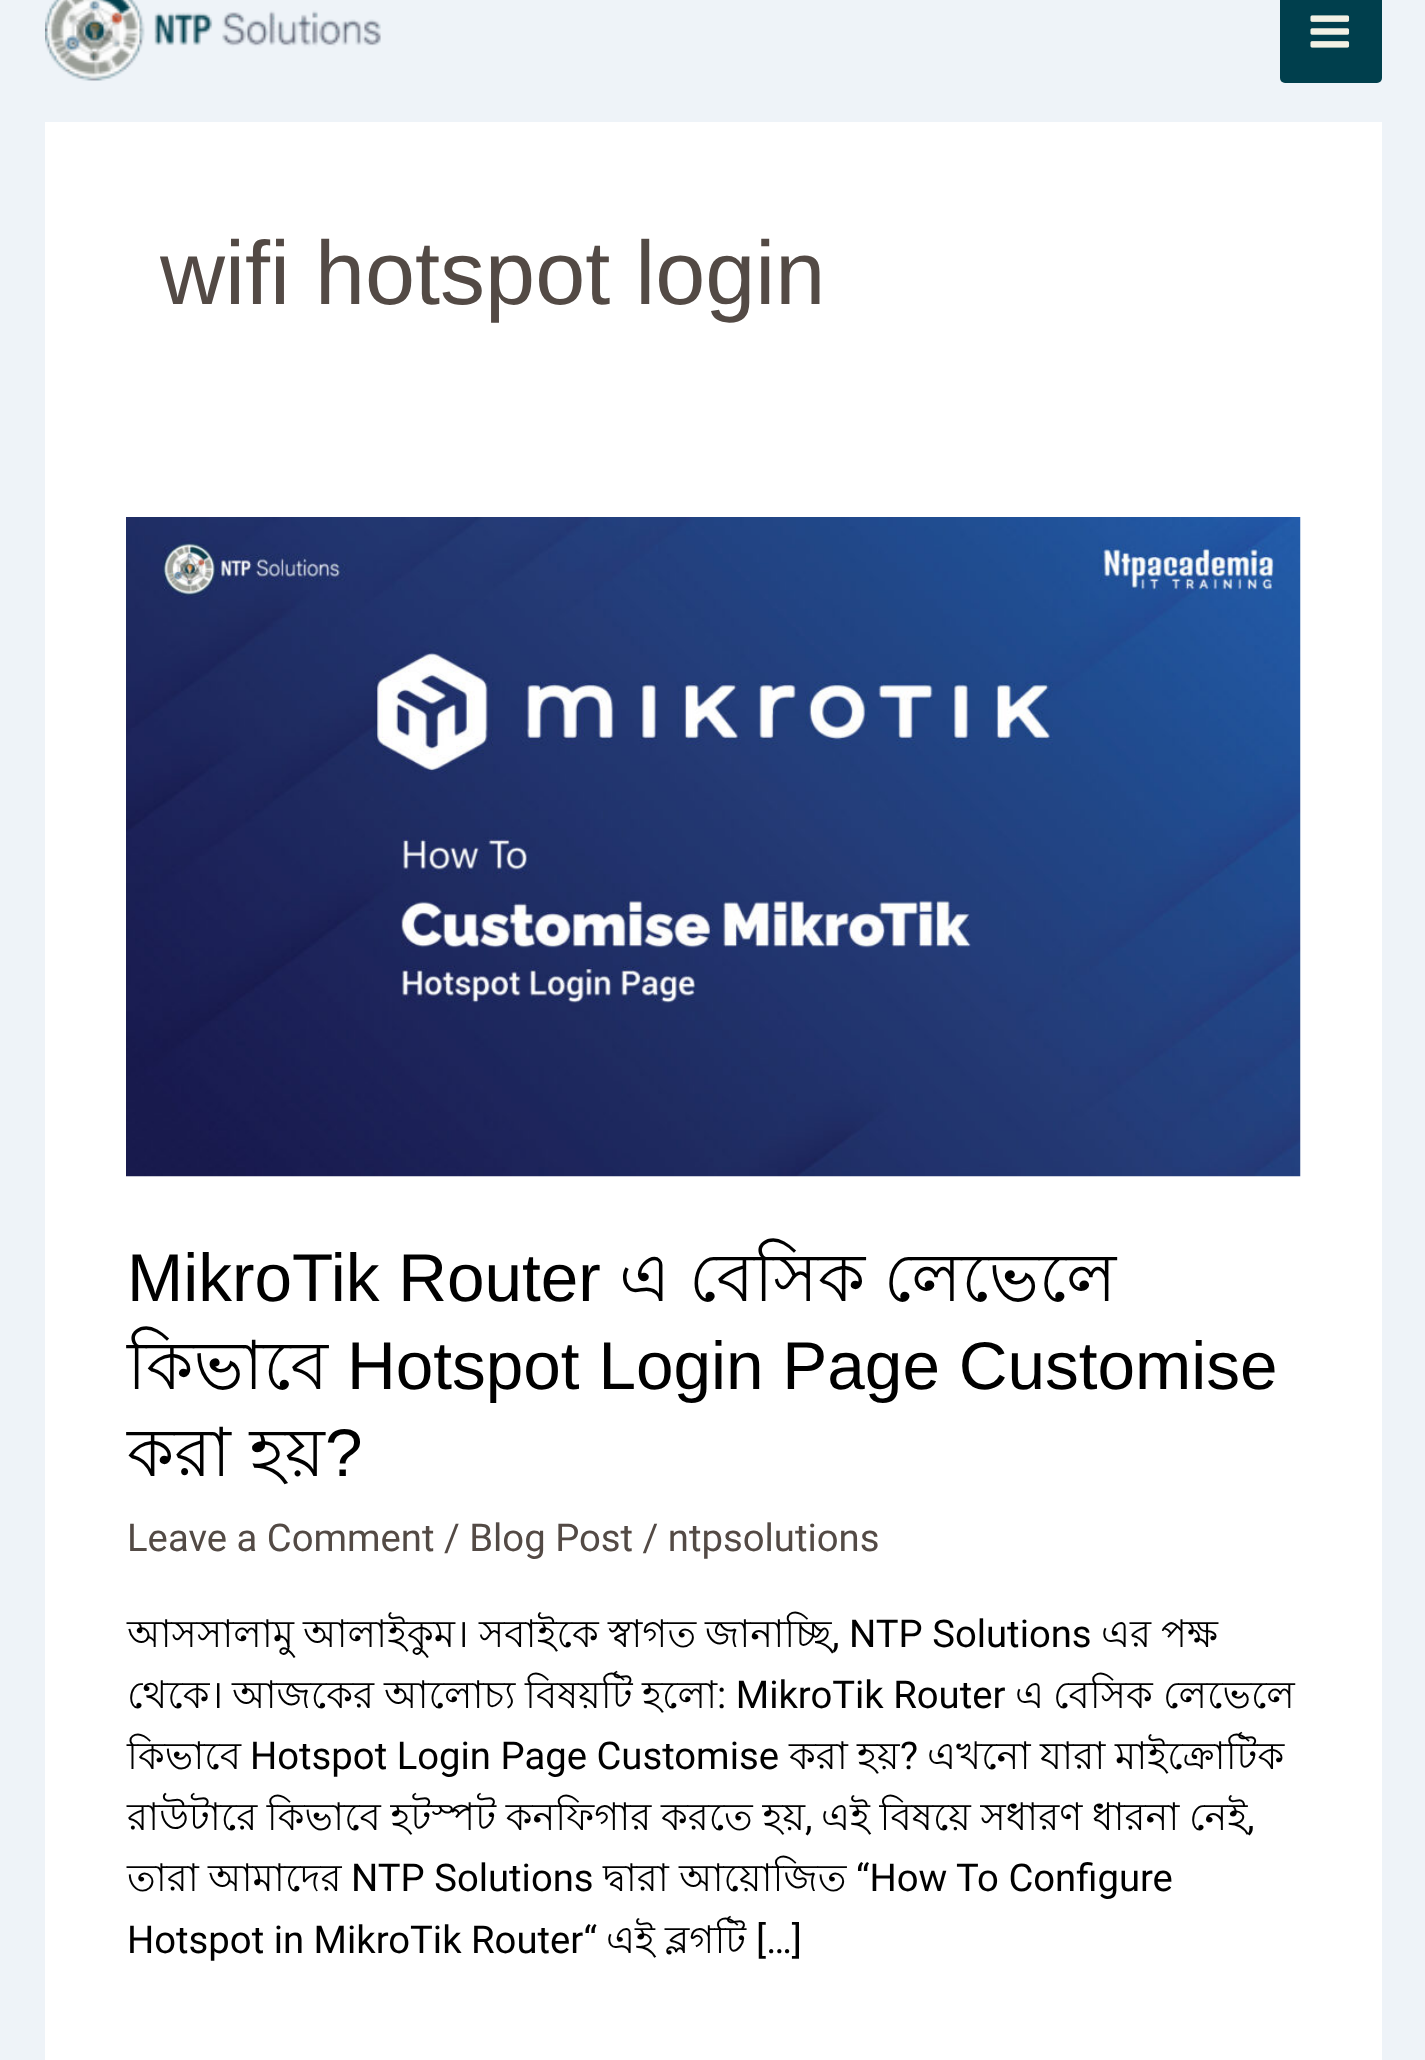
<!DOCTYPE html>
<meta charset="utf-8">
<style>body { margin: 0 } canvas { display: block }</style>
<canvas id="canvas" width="1425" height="2060"></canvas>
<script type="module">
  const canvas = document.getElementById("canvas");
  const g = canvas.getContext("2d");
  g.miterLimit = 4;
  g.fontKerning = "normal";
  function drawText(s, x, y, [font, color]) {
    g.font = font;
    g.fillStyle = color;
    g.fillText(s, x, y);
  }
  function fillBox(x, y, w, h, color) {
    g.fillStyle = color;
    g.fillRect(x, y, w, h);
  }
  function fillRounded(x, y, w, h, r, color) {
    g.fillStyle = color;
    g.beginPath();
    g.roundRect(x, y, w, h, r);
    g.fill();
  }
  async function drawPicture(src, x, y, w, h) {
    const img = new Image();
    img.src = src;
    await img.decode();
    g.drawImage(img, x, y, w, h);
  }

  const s1 = ["90px Liberation Sans", "#534A45"];
  const s2 = ["67.5px Liberation Sans", "#000000"];
  const s3 = ["67.5px Lohit Bengali", "#000000"];
  const s4 = ["38.25px Roboto", "#534A45"];
  const s5 = ["38.25px Lohit Bengali", "#000000"];
  const s6 = ["38.25px Roboto", "#000000"];

  fillBox(0, 0, 1425, 2060, "#EEF3F8");
  await drawPicture("pic1.png", 45, 0, 336, 81);
  fillRounded(1280, -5, 102, 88, 5, "#003F4D");
  await drawPicture("pic2.png", 1310, 15, 40, 33);
  fillBox(45, 122, 1337, 1938, "#FFFFFF");
  drawText("wifi hotspot login", 160, 304, s1);
  await drawPicture("pic3.png", 126, 517, 1175, 660);
  drawText("MikroTik Router", 127, 1301, s2);
  drawText("এ বেসিক লেভেলে", 619, 1301, s3);
  drawText("কিভাবে", 127, 1389, s3);
  drawText("Hotspot Login Page Customise", 347, 1389, s2);
  drawText("করা হয়", 127, 1476, s3);
  drawText("?", 325, 1476, s2);
  drawText("Leave a Comment / Blog Post / ntpsolutions", 127, 1551, s4);
  drawText("আসসালামু", 127, 1647, s5);
  drawText("আলাইকুম।", 303, 1647, s5);
  drawText("সবাইকে", 479, 1647, s5);
  drawText("স্বাগত", 608, 1647, s5);
  drawText("জানাচ্ছি", 705, 1647, s5);
  drawText(", NTP Solutions", 832, 1647, s6);
  drawText("এর", 1101, 1647, s5);
  drawText("পক্ষ", 1161, 1647, s5);
  drawText("থেকে।", 127, 1708, s5);
  drawText("আজকের", 232, 1708, s5);
  drawText("আলোচ্য", 384, 1708, s5);
  drawText("বিষয়টি", 525, 1708, s5);
  drawText("হলো", 642, 1708, s5);
  drawText(": MikroTik Router", 717, 1708, s6);
  drawText("এ", 1015, 1708, s5);
  drawText("বেসিক", 1053, 1708, s5);
  drawText("লেভেলে", 1163, 1708, s5);
  drawText("কিভাবে", 127, 1769, s5);
  drawText("Hotspot Login Page Customise", 250, 1769, s6);
  drawText("করা", 789, 1769, s5);
  drawText("হয়", 857, 1769, s5);
  drawText("?", 900, 1769, s6);
  drawText("এখনো", 927, 1769, s5);
  drawText("যারা", 1040, 1769, s5);
  drawText("মাইক্রোটিক", 1115, 1769, s5);
  g.wordSpacing = "-1px";
  drawText("রাউটারে কিভাবে হটস্পট কনফিগার করতে হয়", 127, 1830, s5);
  g.wordSpacing = "0px";
  drawText(",", 805, 1830, s6);
  g.wordSpacing = "-1px";
  drawText("এই বিষয়ে সধারণ ধারনা নেই", 821, 1830, s5);
  g.wordSpacing = "0px";
  drawText(",", 1247, 1830, s6);
  drawText("তারা", 127, 1891, s5);
  drawText("আমাদের", 208, 1891, s5);
  drawText("NTP Solutions", 351, 1891, s6);
  drawText("দ্বারা", 603, 1891, s5);
  drawText("আয়োজিত", 679, 1891, s5);
  drawText("“How To Configure", 856, 1891, s6);
  drawText("Hotspot in MikroTik Router“", 127, 1953, s6);
  drawText("এই", 606, 1953, s5);
  drawText("ব্লগটি", 665, 1953, s5);
  drawText("[…]", 756, 1953, s6);
</script>
